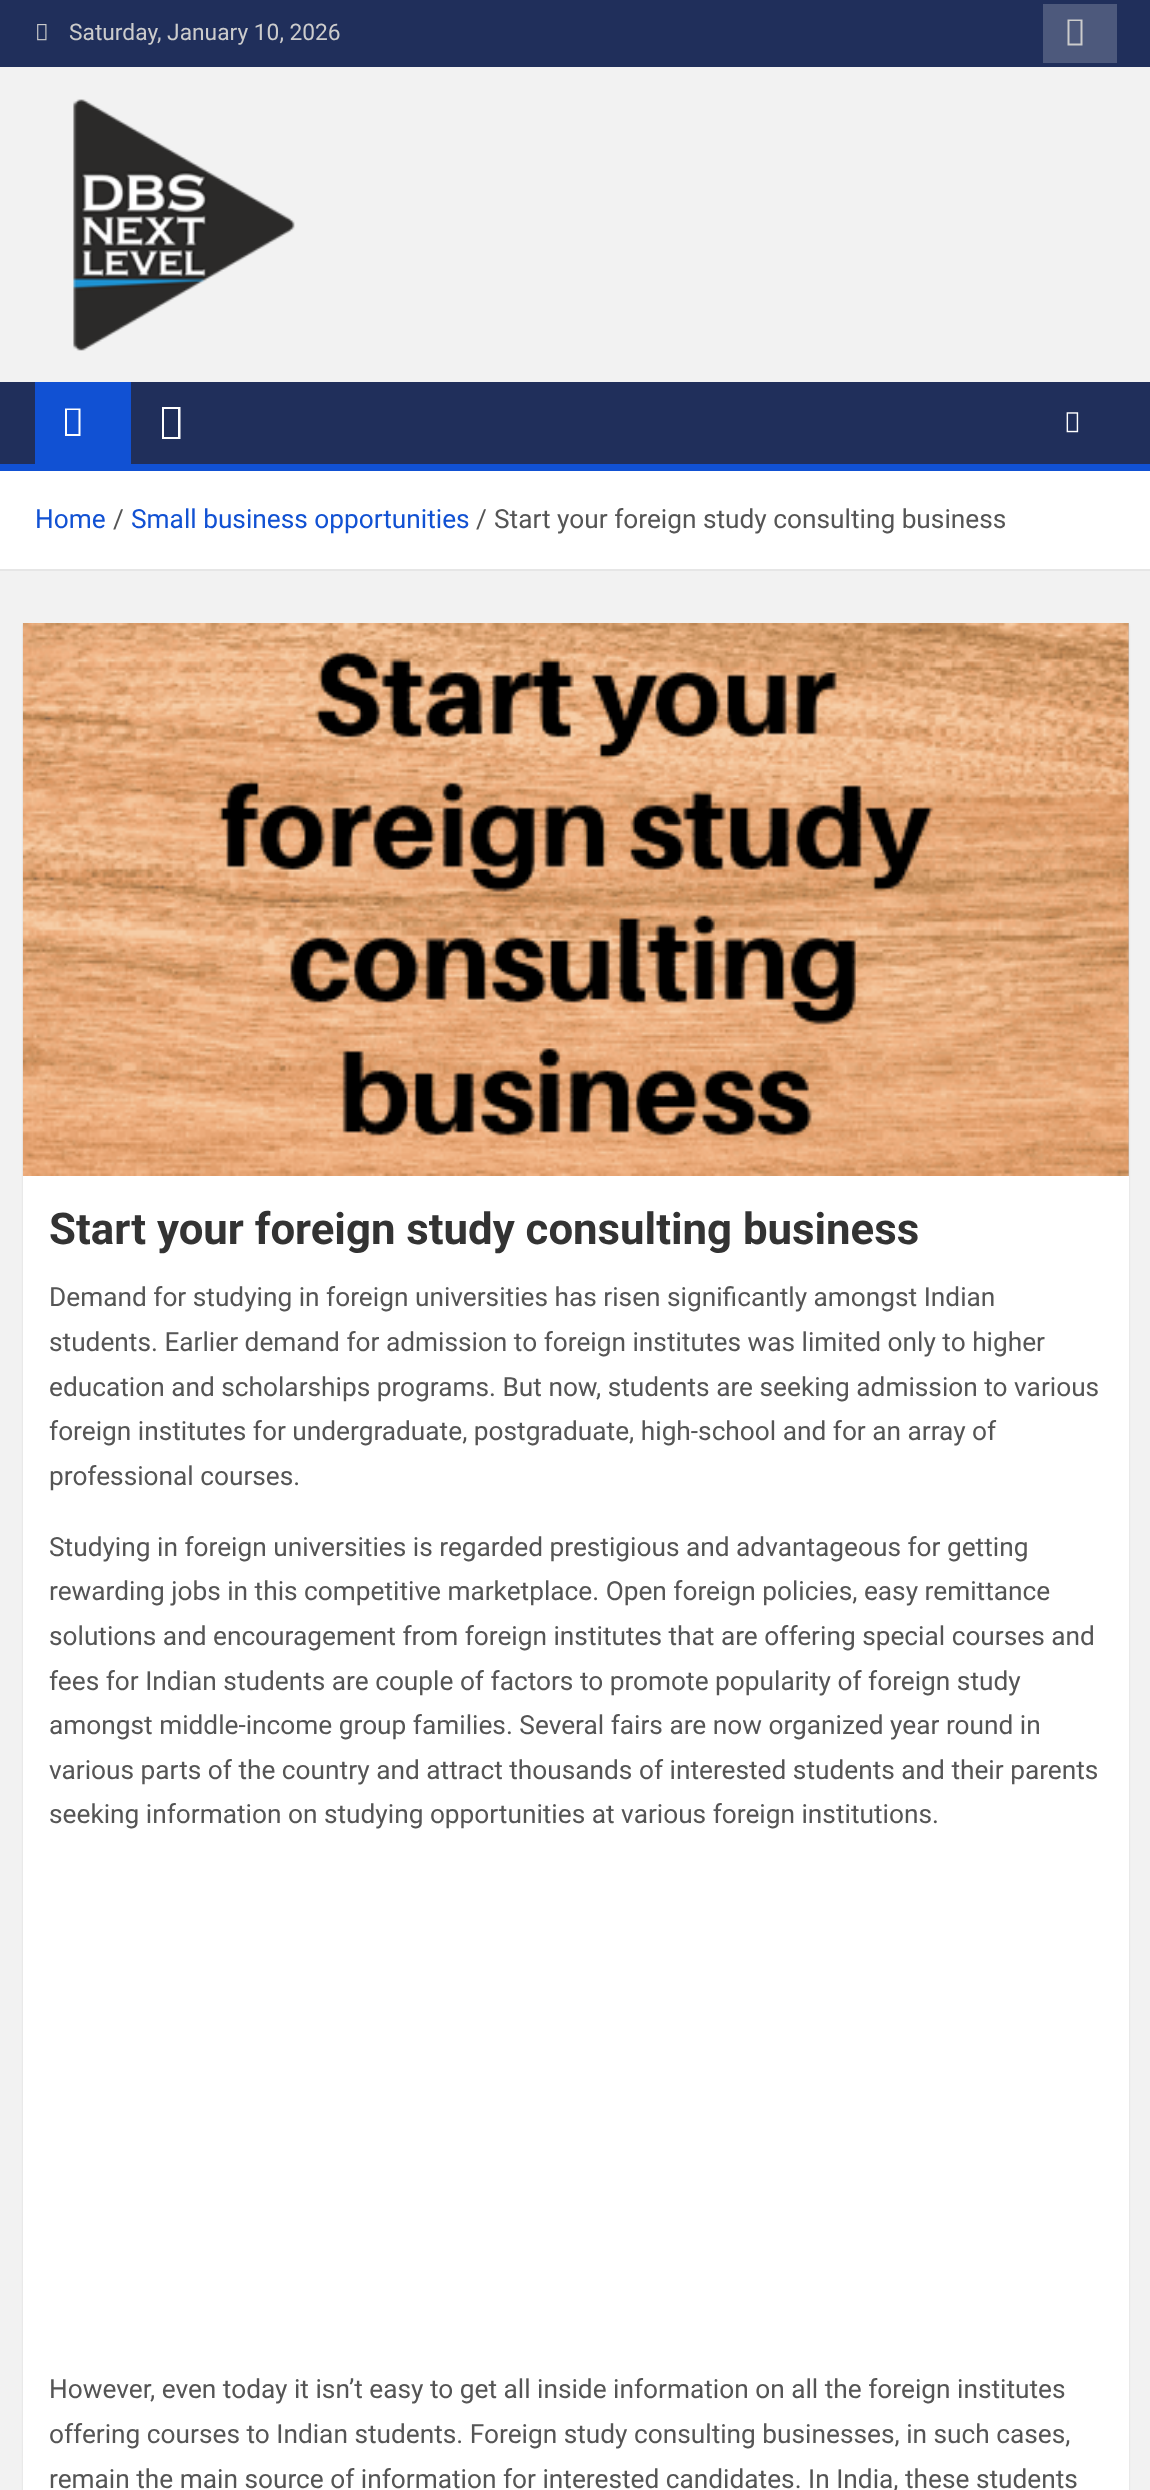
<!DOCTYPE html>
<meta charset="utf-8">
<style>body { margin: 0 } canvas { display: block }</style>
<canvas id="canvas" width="1150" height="2490"></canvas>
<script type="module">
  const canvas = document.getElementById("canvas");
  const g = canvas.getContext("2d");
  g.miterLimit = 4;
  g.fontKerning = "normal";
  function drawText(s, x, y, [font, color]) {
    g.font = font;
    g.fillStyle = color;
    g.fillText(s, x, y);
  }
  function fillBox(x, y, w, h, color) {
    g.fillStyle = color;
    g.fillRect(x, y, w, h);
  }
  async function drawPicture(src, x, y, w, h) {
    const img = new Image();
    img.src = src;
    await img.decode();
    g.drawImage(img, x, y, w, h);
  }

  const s1 = ["22.75px Roboto", "#CCCCCC"];
  const s2 = ["26.25px Roboto", "#1151D3"];
  const s3 = ["26.25px Roboto", "#555555"];
  const s4 = ["bold 43.75px Roboto", "#333333"];

  fillBox(0, 0, 1150, 2490, "#F2F2F2");
  fillBox(0, 0, 1150, 67, "#202F5B");
  await drawPicture("pic1.png", 37, 24, 10, 17);
  drawText("Saturday, January 10, 2026", 69, 40, s1);
  fillBox(1043, 4, 74, 59, "#4D597C");
  g.fillStyle = "#CCCCCC";
  g.beginPath();
  g.moveTo(1067.5, 45.5);
  g.lineTo(1067.5, 19.5);
  g.lineTo(1082.5, 19.5);
  g.lineTo(1082.5, 45.5);
  g.closePath();
  g.moveTo(1069.5, 43.5);
  g.lineTo(1080.5, 43.5);
  g.lineTo(1080.5, 21);
  g.lineTo(1069.5, 21);
  g.closePath();
  g.fill();
  await drawPicture("pic2.png", 73, 99, 222, 252);
  fillBox(0, 382, 1150, 82, "#202F5B");
  fillBox(35, 382, 96, 82, "#1151D3");
  g.fillStyle = "#FFFFFF";
  g.beginPath();
  g.moveTo(65, 436);
  g.lineTo(65, 408.5);
  g.lineTo(80.5, 408.5);
  g.lineTo(80.5, 436);
  g.closePath();
  g.moveTo(67, 434);
  g.lineTo(78.5, 434);
  g.lineTo(78.5, 410);
  g.lineTo(67, 410);
  g.closePath();
  g.fill();
  g.beginPath();
  g.moveTo(162, 439);
  g.lineTo(162, 407);
  g.lineTo(180.5, 407);
  g.lineTo(180.5, 439);
  g.closePath();
  g.moveTo(164, 437);
  g.lineTo(178, 437);
  g.lineTo(178, 409);
  g.lineTo(164, 409);
  g.closePath();
  g.fill();
  await drawPicture("pic3.png", 1066, 412, 13, 21);
  fillBox(0, 464, 1150, 7, "#1151D3");
  fillBox(0, 471, 1150, 98, "#FFFFFF");
  fillBox(0, 569, 1150, 2, "#E6E6E6");
  drawText("Home", 35, 528, s2);
  drawText("/", 113, 528, s3);
  drawText("Small business opportunities", 131, 528, s2);
  drawText("/", 476, 528, s3);
  drawText("Start your foreign study consulting business", 494, 528, s3);
  g.fillStyle = "rgba(0, 0, 0, 0.1)";
  g.filter = "blur(1px)";
  g.beginPath();
  g.rect(23, 625, 1106, 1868);
  g.fill();
  g.filter = "none";
  fillBox(23, 1176, 1106, 1314, "#FFFFFF");
  fillBox(1128, 623, 1, 553, "#BCBCBC");
  await drawPicture("pic4.png", 22, 623, 1107, 553);
  drawText("Start your foreign study consulting business", 49, 1244, s4);
  drawText("Demand for studying in foreign universities has risen significantly amongst Indian", 49, 1306, s3);
  drawText("students. Earlier demand for admission to foreign institutes was limited only to higher", 49, 1351, s3);
  drawText("education and scholarships programs. But now, students are seeking admission to various", 49, 1396, s3);
  drawText("foreign institutes for undergraduate, postgraduate, high-school and for an array of", 49, 1440, s3);
  drawText("professional courses.", 49, 1485, s3);
  drawText("Studying in foreign universities is regarded prestigious and advantageous for getting", 49, 1556, s3);
  drawText("rewarding jobs in this competitive marketplace. Open foreign policies, easy remittance", 49, 1600, s3);
  drawText("solutions and encouragement from foreign institutes that are offering special courses and", 49, 1645, s3);
  drawText("fees for Indian students are couple of factors to promote popularity of foreign study", 49, 1690, s3);
  drawText("amongst middle-income group families. Several fairs are now organized year round in", 49, 1734, s3);
  drawText("various parts of the country and attract thousands of interested students and their parents", 49, 1779, s3);
  drawText("seeking information on studying opportunities at various foreign institutions.", 49, 1823, s3);
  drawText("However, even today it isn’t easy to get all inside information on all the foreign institutes", 49, 2398, s3);
  drawText("offering courses to Indian students. Foreign study consulting businesses, in such cases,", 49, 2443, s3);
  drawText("remain the main source of information for interested candidates. In India, these students", 49, 2488, s3);
</script>
